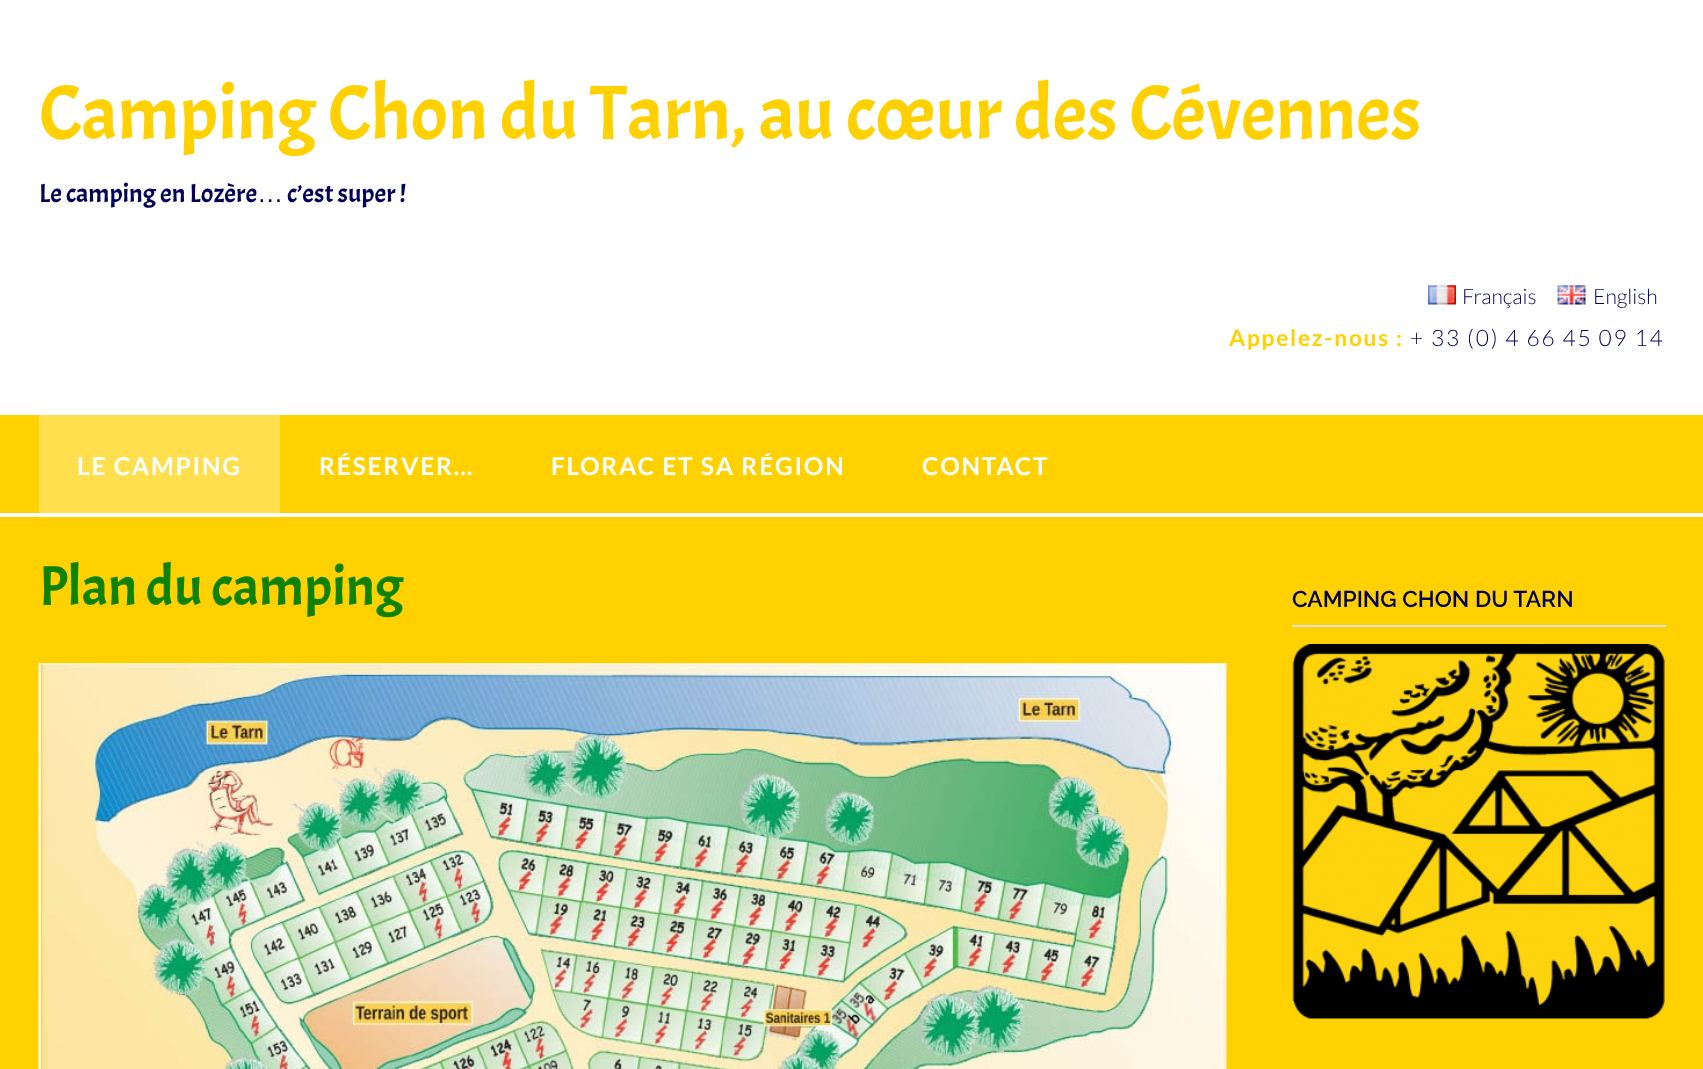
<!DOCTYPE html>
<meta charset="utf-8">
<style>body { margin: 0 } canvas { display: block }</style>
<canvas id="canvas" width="1703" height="1069"></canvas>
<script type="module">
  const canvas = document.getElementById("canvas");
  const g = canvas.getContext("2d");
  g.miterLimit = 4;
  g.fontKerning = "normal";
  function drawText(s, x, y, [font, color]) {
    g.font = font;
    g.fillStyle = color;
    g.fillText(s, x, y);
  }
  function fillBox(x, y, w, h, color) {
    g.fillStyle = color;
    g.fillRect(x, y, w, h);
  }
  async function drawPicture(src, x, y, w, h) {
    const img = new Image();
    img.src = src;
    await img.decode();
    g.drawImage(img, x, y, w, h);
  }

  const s1 = ["77px Acme", "#FFD100"];
  const s2 = ["26.25px Acme", "#020259"];
  const s3 = ["26.25px Liberation Sans", "#020259"];
  const s4 = ["300 21px Lato", "#020259"];
  const s5 = ["bold 22.75px Lato", "#FFD100"];
  const s6 = ["300 22.75px Lato", "#020259"];
  const s7 = ["bold 24.5px Lato", "#FFFFFF"];
  const s8 = ["56px Acme", "#0F8300"];
  const s9 = ["600 22.75px Raleway", "#020259"];

  fillBox(0, 0, 1703, 1069, "#FFD100");
  fillBox(0, 0, 1703, 415, "#FFFFFF");
  drawText("Camping Chon du Tarn, au cœur des Cévennes", 39, 139, s1);
  drawText("Le camping en Lozère", 39, 202, s2);
  drawText("…", 257, 202, s3);
  drawText("c’est super !", 287, 202, s2);
  await drawPicture("pic1.png", 1428, 285, 28, 20);
  drawText("Français", 1462, 304, s4);
  await drawPicture("pic2.png", 1557, 285, 29, 20);
  drawText("English", 1593, 304, s4);
  g.letterSpacing = "1.75px";
  drawText("Appelez-nous :", 1229, 346, s5);
  drawText("+ 33 (0) 4 66 45 09 14", 1410, 346, s6);
  fillBox(0, 513, 1703, 4, "#FFFFFF");
  fillBox(39, 415, 241, 98, "#FFDF4D");
  drawText("LE CAMPING", 77, 475, s7);
  drawText("RÉSERVER…", 319, 475, s7);
  drawText("FLORAC ET SA RÉGION", 551, 475, s7);
  drawText("CONTACT", 922, 475, s7);
  g.letterSpacing = "0px";
  drawText("Plan du camping", 39, 605, s8);
  await drawPicture("pic3.png", 38, 663, 1189, 406);
  fillBox(1292, 625, 374, 2, "#E0E0E0");
  drawText("CAMPING CHON DU TARN", 1292, 607, s9);
  await drawPicture("pic4.png", 1292, 644, 373, 375);
</script>
